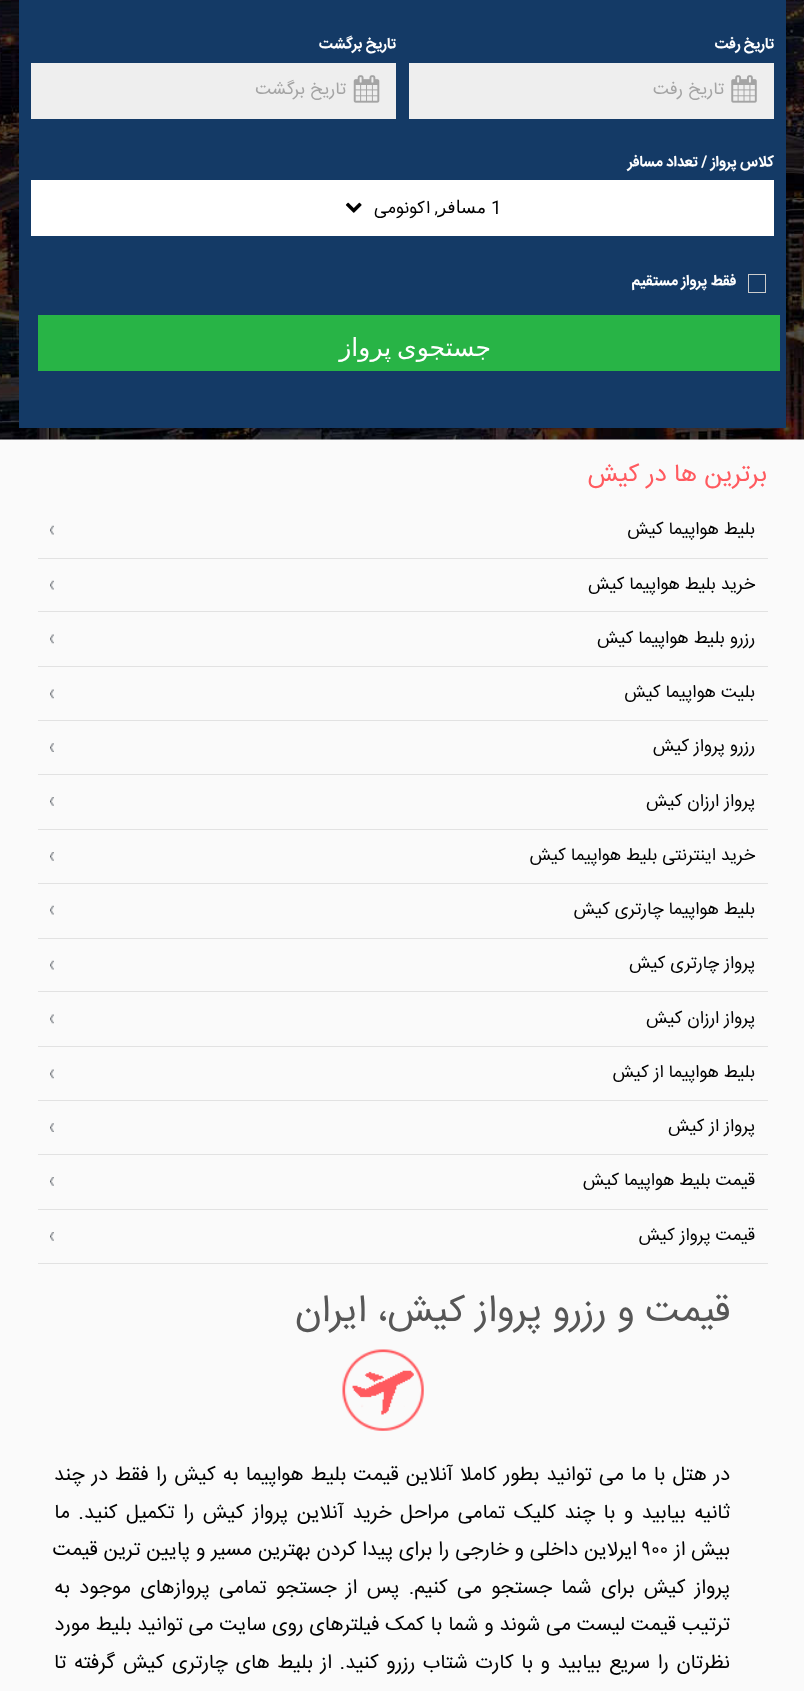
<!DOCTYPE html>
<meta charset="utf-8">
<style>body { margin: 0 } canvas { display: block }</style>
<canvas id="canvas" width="804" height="1691"></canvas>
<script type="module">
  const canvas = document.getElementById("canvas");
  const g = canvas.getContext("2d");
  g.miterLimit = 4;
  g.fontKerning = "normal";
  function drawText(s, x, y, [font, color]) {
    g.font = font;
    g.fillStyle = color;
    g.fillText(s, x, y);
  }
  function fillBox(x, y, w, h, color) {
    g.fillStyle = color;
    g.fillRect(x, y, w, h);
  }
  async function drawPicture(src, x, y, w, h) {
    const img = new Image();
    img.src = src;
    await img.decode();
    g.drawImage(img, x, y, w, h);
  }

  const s1 = ["bold 14.9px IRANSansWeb", "#FFFFFF"];
  const s2 = ["17.5px IRANSansWeb", "#A4A4A4"];
  const s3 = ["17.5px IRANSansWeb", "#000000"];
  const s4 = ["17.5px Roboto", "#000000"];
  const s5 = ["17.5px DejaVu Sans", "#000000"];
  const s6 = ["25px DejaVu Sans", "#FFFFFF"];
  const s7 = ["25px IRANSansWeb", "#FF5A5F"];
  const s8 = ["37.5px IRANSansWeb", "#565656"];
  const s9 = ["20px IRANSansWeb", "#000000"];

  fillBox(0, 0, 804, 1691, "#FAFAFA");
  await drawPicture("pic1.png", 0, 0, 804, 440);
  fillBox(19, 0, 767, 428, "#143A66");
  g.direction = "rtl";
  drawText("تاریخ رفت", 774, 48, s1);
  fillBox(409, 63, 365, 56, "#EEEEEE");
  await drawPicture("pic2.png", 731, 75, 26, 28);
  drawText("تاریخ رفت", 724, 94, s2);
  drawText("تاریخ برگشت", 396, 48, s1);
  fillBox(31, 63, 365, 56, "#EEEEEE");
  await drawPicture("pic3.png", 353, 75, 27, 28);
  drawText("تاریخ برگشت", 346, 94, s2);
  drawText("کلاس پرواز / تعداد مسافر", 774, 166, s1);
  fillBox(31, 180, 743, 56, "#FFFFFF");
  g.direction = "ltr";
  drawText("1", 491, 213, s3);
  g.direction = "rtl";
  drawText(",", 438, 213, s4);
  drawText("مسافر", 486, 213, s5);
  drawText("اکونومی", 430, 213, s3);
  await drawPicture("pic4.png", 345, 202, 17, 11);
  g.strokeStyle = "#CCCCCC";
  g.strokeRect(748.5, 274.5, 17, 18);
  drawText("فقط پرواز مستقیم", 736, 285, s1);
  fillBox(38, 315, 742, 56, "#28B446");
  g.wordSpacing = "-2px";
  drawText("جستجوی پرواز", 491, 356, s6);
  g.wordSpacing = "0px";
  drawText("برترین ها در کیش", 767, 481, s7);
  fillBox(38, 558, 730, 1, "#E2E2E2");
  drawText("بلیط هواپیما کیش", 755, 534, s3);
  await drawPicture("pic5.png", 50, 525, 4, 10);
  fillBox(38, 611, 730, 1, "#E2E2E2");
  drawText("خرید بلیط هواپیما کیش", 755, 589, s3);
  await drawPicture("pic5.png", 50, 580, 4, 10);
  fillBox(38, 666, 730, 1, "#E2E2E2");
  drawText("رزرو بلیط هواپیما کیش", 755, 643, s3);
  await drawPicture("pic6.png", 50, 634, 4, 10);
  fillBox(38, 720, 730, 1, "#E2E2E2");
  drawText("بلیت هواپیما کیش", 755, 697, s3);
  await drawPicture("pic6.png", 50, 689, 4, 10);
  fillBox(38, 774, 730, 1, "#E2E2E2");
  drawText("رزرو پرواز کیش", 755, 751, s3);
  await drawPicture("pic7.png", 50, 743, 4, 9);
  fillBox(38, 829, 730, 1, "#E2E2E2");
  drawText("پرواز ارزان کیش", 755, 806, s3);
  await drawPicture("pic8.png", 50, 797, 4, 9);
  fillBox(38, 883, 730, 1, "#E2E2E2");
  drawText("خرید اینترنتی بلیط هواپیما کیش", 755, 860, s3);
  await drawPicture("pic8.png", 50, 852, 4, 9);
  fillBox(38, 938, 730, 1, "#E2E2E2");
  drawText("بلیط هواپیما چارتری کیش", 755, 914, s3);
  await drawPicture("pic5.png", 50, 905, 4, 10);
  fillBox(38, 991, 730, 1, "#E2E2E2");
  drawText("پرواز چارتری کیش", 755, 968, s3);
  await drawPicture("pic5.png", 50, 960, 4, 10);
  fillBox(38, 1046, 730, 1, "#E2E2E2");
  drawText("پرواز ارزان کیش", 755, 1023, s3);
  await drawPicture("pic6.png", 50, 1014, 4, 10);
  fillBox(38, 1100, 730, 1, "#E2E2E2");
  drawText("بلیط هواپیما از کیش", 755, 1077, s3);
  await drawPicture("pic6.png", 50, 1069, 4, 10);
  fillBox(38, 1154, 730, 1, "#E2E2E2");
  drawText("پرواز از کیش", 755, 1131, s3);
  await drawPicture("pic7.png", 50, 1123, 4, 9);
  fillBox(38, 1209, 730, 1, "#E2E2E2");
  drawText("قیمت بلیط هواپیما کیش", 755, 1185, s3);
  await drawPicture("pic8.png", 50, 1177, 4, 9);
  fillBox(38, 1263, 730, 1, "#E2E2E2");
  drawText("قیمت پرواز کیش", 755, 1240, s3);
  await drawPicture("pic8.png", 50, 1232, 4, 9);
  drawText("قیمت و رزرو پرواز کیش، ایران", 730, 1321, s8);
  await drawPicture("pic9.png", 342, 1349, 82, 82);
  g.wordSpacing = "1.5px";
  drawText("در هتل با ما می توانید بطور کاملا آنلاین قیمت بلیط هواپیما به کیش را فقط در چند", 730, 1480, s9);
  g.wordSpacing = "2.9px";
  drawText("ثانیه بیابید و با چند کلیک تمامی مراحل خرید آنلاین پرواز کیش را تکمیل کنید. ما", 730, 1518, s9);
  g.wordSpacing = "0px";
  drawText("بیش از", 730, 1555, s9);
  g.direction = "ltr";
  drawText("۹۰۰", 643, 1555, s9);
  g.wordSpacing = "0.25px";
  g.direction = "rtl";
  drawText("ایرلاین داخلی و خارجی را برای پیدا کردن بهترین مسیر و پایین ترین قیمت", 637, 1555, s9);
  g.wordSpacing = "3.75px";
  drawText("پرواز کیش برای شما جستجو می کنیم. پس از جستجو تمامی پروازهای موجود به", 730, 1593, s9);
  g.wordSpacing = "0.25px";
  drawText("ترتیب قیمت لیست می شوند و شما با کمک فیلترهای روی سایت می توانید بلیط مورد", 730, 1630, s9);
  g.wordSpacing = "2px";
  drawText("نظرتان را سریع بیابید و با کارت شتاب رزرو کنید. از بلیط های چارتری کیش گرفته تا", 730, 1668, s9);
</script>
